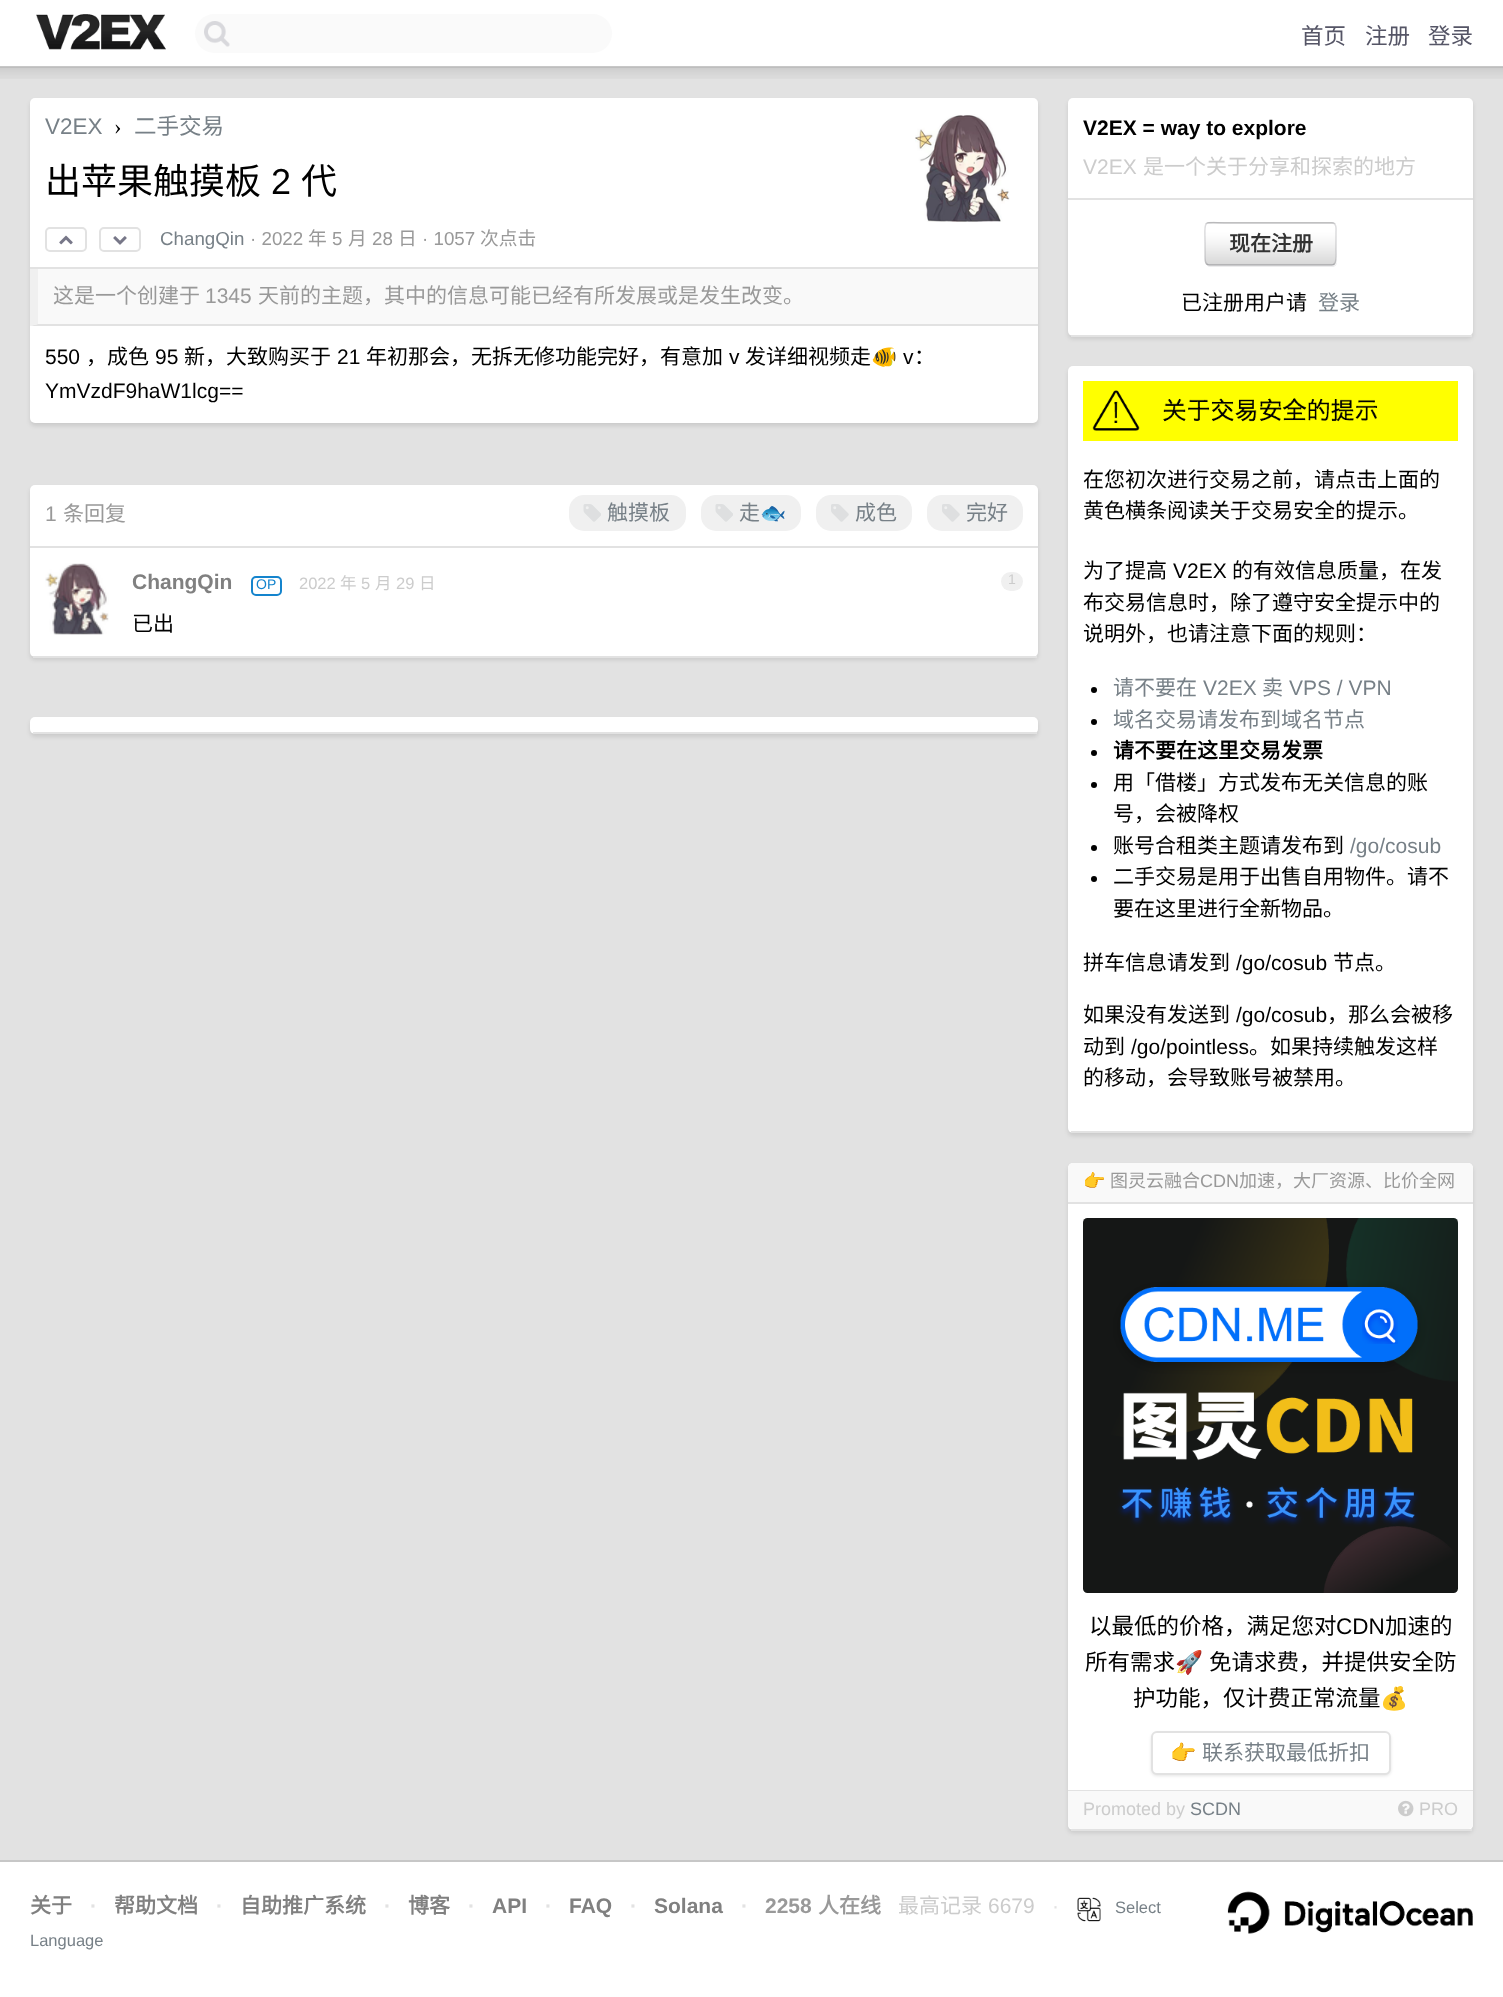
<!DOCTYPE html>
<meta charset="utf-8">
<style>body { margin: 0 } canvas { display: block }</style>
<canvas id="canvas" width="1503" height="1997"></canvas>
<script type="module">
  const canvas = document.getElementById("canvas");
  const g = canvas.getContext("2d");
  g.miterLimit = 4;
  g.fontKerning = "normal";
  function drawText(s, x, y, [font, color]) {
    g.font = font;
    g.fillStyle = color;
    g.fillText(s, x, y);
  }
  function fillBox(x, y, w, h, color) {
    g.fillStyle = color;
    g.fillRect(x, y, w, h);
  }
  function fillRounded(x, y, w, h, r, color) {
    g.fillStyle = color;
    g.beginPath();
    g.roundRect(x, y, w, h, r);
    g.fill();
  }
  async function drawPicture(src, x, y, w, h) {
    const img = new Image();
    img.src = src;
    await img.decode();
    g.drawImage(img, x, y, w, h);
  }

  const s1 = ["22.5px Noto Sans CJK SC", "#555566"];
  const s2 = ["22.5px Liberation Sans", "#778087"];
  const s3 = ["22.5px Liberation Serif", "#000000"];
  const s4 = ["22.5px Noto Sans CJK SC", "#778087"];
  const s5 = ["36px Noto Sans CJK SC", "#000000"];
  const s6 = ["36px Liberation Sans", "#000000"];
  const s7 = ["18.75px Liberation Sans", "#778087"];
  const s8 = ["18.75px Liberation Sans", "#999999"];
  const s9 = ["18.75px Noto Sans CJK SC", "#999999"];
  const s10 = ["21px Noto Sans CJK SC", "#999999"];
  const s11 = ["21px Liberation Sans", "#999999"];
  const s12 = ["21px Liberation Sans", "#000000"];
  const s13 = ["21px Noto Sans CJK SC", "#000000"];
  const s14 = ["21px Noto Color Emoji", "#000000"];
  const s15 = ["21px Noto Sans CJK SC", "#778087"];
  const s16 = ["21px Noto Color Emoji", "#778087"];
  const s17 = ["bold 21px Liberation Sans", "#808080"];
  const s18 = ["14px Liberation Sans", "#1484CD"];
  const s19 = ["16.5px Liberation Sans", "#CCCCCC"];
  const s20 = ["16.5px Noto Sans CJK SC", "#CCCCCC"];
  const s21 = ["14px Liberation Sans", "#CCCCCC"];
  const s22 = ["bold 21px Liberation Sans", "#000000"];
  const s23 = ["21px Liberation Sans", "#CCCCCC"];
  const s24 = ["21px Noto Sans CJK SC", "#CCCCCC"];
  const s25 = ["bold 21px Noto Sans CJK SC", "#333333"];
  const s26 = ["21px Liberation Sans", "#778087"];
  const s27 = ["bold 21px Noto Sans CJK SC", "#000000"];
  const s28 = ["18px Noto Color Emoji", "#999999"];
  const s29 = ["18px Noto Sans CJK SC", "#999999"];
  const s30 = ["18px Liberation Sans", "#999999"];
  const s31 = ["22.5px Noto Sans CJK SC", "#000000"];
  const s32 = ["22.5px Liberation Sans", "#000000"];
  const s33 = ["22.5px Noto Color Emoji", "#000000"];
  const s34 = ["18px Liberation Sans", "#CCCCCC"];
  const s35 = ["18px Liberation Sans", "#778087"];
  const s36 = ["bold 21px Noto Sans CJK SC", "#808080"];
  const s37 = ["bold 21px Liberation Sans", "#E2E2E2"];
  const s38 = ["bold 21px Liberation Sans", "#999999"];
  const s39 = ["bold 21px Noto Sans CJK SC", "#999999"];
  const s40 = ["21px Liberation Sans", "#E2E2E2"];
  const s41 = ["16.5px Liberation Sans", "#778087"];

  fillBox(0, 0, 1503, 1997, "#FFFFFF");
  fillBox(0, 66, 1503, 2, "#C7C7C7");
  await drawPicture("pic1.png", 36, 14, 130, 36);
  fillRounded(195, 14, 417, 39, 19.5, "#FAFAFA");
  await drawPicture("pic2.png", 204, 21, 26, 26);
  drawText("首页", 1301, 44, s1);
  drawText("注册", 1365, 44, s1);
  drawText("登录", 1428, 44, s1);
  fillBox(0, 68, 1503, 1792, "#E2E2E2");
  await drawPicture("pic3.png", 0, 67, 1503, 12);
  g.fillStyle = "rgba(0, 0, 0, 0.1)";
  g.filter = "blur(2px)";
  g.beginPath();
  g.roundRect(30, 101, 1008, 325, 5);
  g.fill();
  g.filter = "none";
  fillRounded(30, 98, 1008, 325, 5, "#FFFFFF");
  fillBox(30, 269, 1008, 57, "#F9F9F9");
  g.fillStyle = "#E2E2E2";
  g.beginPath();
  g.moveTo(1038, 326);
  g.lineTo(30, 326);
  g.lineTo(38, 324);
  g.lineTo(1038, 324);
  g.closePath();
  g.fill();
  g.fillStyle = "#F0F0F0";
  g.beginPath();
  g.moveTo(30, 326);
  g.lineTo(30, 268);
  g.lineTo(38, 268);
  g.lineTo(38, 324);
  g.closePath();
  g.fill();
  fillBox(30, 267, 1008, 2, "#E2E2E2");
  drawText("V2EX", 45, 134, s2);
  drawText("›", 114, 134, s3);
  drawText("二手交易", 134, 134, s4);
  await drawPicture("pic4.png", 915, 114, 95, 108);
  drawText("出苹果触摸板", 45, 194, s5);
  drawText("2", 271, 194, s6);
  drawText("代", 301, 194, s5);
  g.beginPath();
  g.roundRect(46, 228, 40, 23, 4);
  g.strokeStyle = "#E2E2E2";
  g.lineWidth = 2;
  g.stroke();
  await drawPicture("pic5.png", 59, 235, 14, 10);
  g.beginPath();
  g.roundRect(100, 228, 40, 23, 4);
  g.stroke();
  await drawPicture("pic6.png", 113, 236, 14, 9);
  drawText("ChangQin", 160, 245, s7);
  drawText("· 2022", 250, 245, s8);
  drawText("年", 308, 245, s9);
  drawText("5", 332, 245, s8);
  drawText("月", 348, 245, s9);
  drawText("28", 372, 245, s8);
  drawText("日", 398, 245, s9);
  drawText("· 1057", 422, 245, s8);
  drawText("次点击", 480, 245, s9);
  drawText("这是一个创建于", 53, 303, s10);
  drawText("1345", 205, 303, s11);
  drawText("天前的主题，其中的信息可能已经有所发展或是发生改变。", 258, 303, s10);
  drawText("550", 45, 364, s12);
  drawText("，成色", 86, 364, s13);
  drawText("95", 155, 364, s12);
  drawText("新，大致购买于", 184, 364, s13);
  drawText("21", 337, 364, s12);
  drawText("年初那会，无拆无修功能完好，有意加", 366, 364, s13);
  drawText("v", 729, 364, s12);
  drawText("发详细视频走", 745, 364, s13);
  drawText("🐠", 871, 364, s14);
  drawText("v", 903, 364, s12);
  drawText("：", 914, 364, s13);
  drawText("YmVzdF9haW1lcg==", 45, 398, s12);
  g.fillStyle = "rgba(0, 0, 0, 0.1)";
  g.filter = "blur(2px)";
  g.beginPath();
  g.roundRect(30, 488, 1008, 172, 5);
  g.fill();
  g.filter = "none";
  fillRounded(30, 485, 1008, 172, 5, "#FFFFFF");
  fillBox(33, 656, 1004, 2, "#E2E2E2");
  fillBox(30, 546, 1008, 2, "#E2E2E2");
  drawText("1", 45, 521, s11);
  drawText("条回复", 63, 521, s10);
  fillRounded(569, 495, 117, 36, 15, "#F0F0F0");
  await drawPicture("pic7.png", 583, 504, 18, 18);
  drawText("触摸板", 607, 520, s15);
  fillRounded(701, 495, 100, 36, 15, "#F0F0F0");
  await drawPicture("pic7.png", 715, 504, 18, 18);
  drawText("走", 739, 520, s15);
  drawText("🐟", 760, 520, s16);
  fillRounded(816, 495, 96, 36, 15, "#F0F0F0");
  await drawPicture("pic8.png", 831, 504, 18, 18);
  drawText("成色", 855, 520, s15);
  fillRounded(927, 495, 96, 36, 15, "#F0F0F0");
  await drawPicture("pic8.png", 942, 504, 18, 18);
  drawText("完好", 966, 520, s15);
  await drawPicture("pic9.png", 45, 563, 64, 72);
  drawText("ChangQin", 132, 589, s17);
  g.beginPath();
  g.roundRect(252, 577, 29, 18, 4);
  g.strokeStyle = "#1484CD";
  g.stroke();
  drawText("OP", 256, 589, s18);
  drawText("2022", 299, 589, s19);
  drawText("年", 340, 589, s20);
  drawText("5", 361, 589, s19);
  drawText("月", 375, 589, s20);
  drawText("29", 396, 589, s19);
  drawText("日", 419, 589, s20);
  fillRounded(1001, 572, 22, 19, 9.5, "#F0F0F0");
  drawText("1", 1008, 584, s21);
  drawText("已出", 132, 631, s13);
  g.fillStyle = "rgba(0, 0, 0, 0.1)";
  g.filter = "blur(2px)";
  g.beginPath();
  g.roundRect(30, 720, 1008, 17, 5);
  g.fill();
  g.filter = "none";
  fillRounded(30, 717, 1008, 17, 5, "#FFFFFF");
  fillBox(33, 732, 1004, 2, "#E2E2E2");
  g.fillStyle = "rgba(0, 0, 0, 0.1)";
  g.filter = "blur(2px)";
  g.beginPath();
  g.roundRect(1068, 101, 405, 238, 5);
  g.fill();
  g.filter = "none";
  fillRounded(1068, 98, 405, 238, 5, "#FFFFFF");
  fillBox(1071, 335, 401, 2, "#E2E2E2");
  fillBox(1068, 198, 405, 2, "#E2E2E2");
  drawText("V2EX = way to explore", 1083, 135, s22);
  drawText("V2EX", 1083, 174, s23);
  drawText("是一个关于分享和探索的地方", 1143, 174, s24);
  g.fillStyle = "#ECECED";
  g.beginPath();
  g.moveTo(1205, 263);
  g.bezierCurveTo(1206, 265, 1208, 267, 1210, 267);
  g.lineTo(1332, 267);
  g.bezierCurveTo(1335, 267, 1337, 265, 1337, 262);
  g.lineTo(1337, 229);
  g.lineTo(1336, 227);
  g.lineTo(1336, 261);
  g.bezierCurveTo(1336, 263, 1334, 266, 1332, 266);
  g.lineTo(1209, 266);
  g.bezierCurveTo(1207, 266, 1206, 265, 1205, 263);
  g.closePath();
  g.fill();
  fillRounded(1205, 222, 132, 44, 5, "#FFFFFF");
  await drawPicture("pic10.png", 1204, 222, 133, 44);
  g.beginPath();
  g.moveTo(1334.5, 263.5);
  g.bezierCurveTo(1334, 264.5, 1333, 265, 1332, 265);
  g.lineTo(1209, 265);
  g.bezierCurveTo(1208, 265, 1207, 264.5, 1206.5, 263.5);
  g.strokeStyle = "rgba(80, 80, 90, 0.35)";
  g.lineWidth = 1.5;
  g.stroke();
  g.beginPath();
  g.moveTo(1206.5, 263.5);
  g.bezierCurveTo(1204.5, 261.5, 1205, 257, 1205, 255);
  g.lineTo(1205, 244);
  g.bezierCurveTo(1205, 217.5, 1201, 223, 1229.5, 223);
  g.lineTo(1332, 223);
  g.bezierCurveTo(1337, 223, 1336, 229.5, 1336, 232);
  g.lineTo(1336, 249.5);
  g.bezierCurveTo(1336, 252.5, 1337, 261, 1334.5, 263.5);
  g.strokeStyle = "rgba(80, 80, 90, 0.2)";
  g.stroke();
  drawText("现在注册", 1229, 251, s25);
  drawText("已注册用户请", 1181, 310, s13);
  drawText("登录", 1318, 310, s15);
  g.fillStyle = "rgba(0, 0, 0, 0.1)";
  g.filter = "blur(2px)";
  g.beginPath();
  g.roundRect(1068, 369, 405, 767, 5);
  g.fill();
  g.filter = "none";
  fillRounded(1068, 366, 405, 767, 5, "#FFFFFF");
  fillBox(1071, 1131, 401, 2, "#E2E2E2");
  await drawPicture("pic11.png", 1083, 381, 375, 60);
  drawText("在您初次进行交易之前，请点击上面的", 1083, 487, s13);
  drawText("黄色横条阅读关于交易安全的提示。", 1083, 518, s13);
  drawText("为了提高", 1083, 578, s13);
  drawText("V2EX", 1173, 578, s12);
  drawText("的有效信息质量，在发", 1232, 578, s13);
  drawText("布交易信息时，除了遵守安全提示中的", 1083, 610, s13);
  drawText("说明外，也请注意下面的规则：", 1083, 641, s13);
  g.beginPath();
  g.arc(1094, 690, 3, 0, Math.PI * 2);
  g.fill();
  drawText("请不要在", 1113, 695, s15);
  drawText("V2EX", 1203, 695, s26);
  drawText("卖", 1262, 695, s15);
  drawText("VPS / VPN", 1289, 695, s26);
  g.fillStyle = "#000000";
  g.beginPath();
  g.arc(1094, 722, 3, 0, Math.PI * 2);
  g.fill();
  drawText("域名交易请发布到域名节点", 1113, 727, s15);
  g.fillStyle = "#000000";
  g.beginPath();
  g.arc(1094, 753, 3, 0, Math.PI * 2);
  g.fill();
  drawText("请不要在这里交易发票", 1113, 758, s27);
  g.beginPath();
  g.arc(1094, 785, 3, 0, Math.PI * 2);
  g.fill();
  drawText("用「借楼」方式发布无关信息的账", 1113, 790, s13);
  drawText("号，会被降权", 1113, 821, s13);
  g.beginPath();
  g.arc(1094, 848, 3, 0, Math.PI * 2);
  g.fill();
  drawText("账号合租类主题请发布到", 1113, 853, s13);
  drawText("/go/cosub", 1350, 853, s26);
  g.fillStyle = "#000000";
  g.beginPath();
  g.arc(1094, 879, 3, 0, Math.PI * 2);
  g.fill();
  drawText("二手交易是用于出售自用物件。请不", 1113, 884, s13);
  drawText("要在这里进行全新物品。", 1113, 916, s13);
  drawText("拼车信息请发到", 1083, 970, s13);
  drawText("/go/cosub", 1236, 970, s12);
  drawText("节点。", 1333, 970, s13);
  drawText("如果没有发送到", 1083, 1022, s13);
  drawText("/go/cosub", 1236, 1022, s12);
  drawText("，那么会被移", 1327, 1022, s13);
  drawText("动到", 1083, 1054, s13);
  drawText("/go/pointless", 1131, 1054, s12);
  drawText("。如果持续触发这样", 1249, 1054, s13);
  drawText("的移动，会导致账号被禁用。", 1083, 1085, s13);
  g.fillStyle = "rgba(0, 0, 0, 0.1)";
  g.filter = "blur(2px)";
  g.beginPath();
  g.roundRect(1068, 1166, 405, 667, 5);
  g.fill();
  g.filter = "none";
  fillRounded(1068, 1163, 405, 667, 5, "#FFFFFF");
  fillBox(1071, 1829, 401, 2, "#E2E2E2");
  g.fillStyle = "#F9F9F9";
  g.beginPath();
  g.roundRect(1068, 1163, 405, 40, [5, 5, 0, 0]);
  g.fill();
  fillBox(1068, 1202, 405, 2, "#E2E2E2");
  drawText("👉", 1083, 1187, s28);
  drawText("图灵云融合", 1110, 1187, s29);
  drawText("CDN", 1200, 1187, s30);
  drawText("加速，大厂资源、比价全网", 1239, 1187, s29);
  await drawPicture("pic12.png", 1083, 1218, 375, 375);
  drawText("以最低的价格，满足您对", 1089, 1634, s31);
  drawText("CDN", 1336, 1634, s32);
  drawText("加速的", 1385, 1634, s31);
  drawText("所有需求", 1085, 1670, s31);
  drawText("🚀", 1175, 1670, s33);
  drawText("免请求费，并提供安全防", 1209, 1670, s31);
  drawText("护功能，仅计费正常流量", 1133, 1706, s31);
  drawText("💰", 1380, 1706, s33);
  fillBox(1068, 1790, 405, 1, "#E2E2E2");
  g.fillStyle = "rgba(0, 0, 0, 0.1)";
  g.filter = "blur(1.5px)";
  g.beginPath();
  g.roundRect(1151, 1733, 240, 43, 6);
  g.fill();
  g.filter = "none";
  g.fillStyle = "#FFFFFF";
  g.beginPath();
  g.roundRect(1152, 1732, 238, 42, 5);
  g.fill();
  g.strokeStyle = "#E2E2E2";
  g.lineWidth = 2;
  g.stroke();
  drawText("👉", 1170, 1760, s16);
  drawText("联系获取最低折扣", 1202, 1760, s15);
  g.fillStyle = "#F9F9F9";
  g.beginPath();
  g.roundRect(1068, 1791, 405, 38, [0, 0, 5, 5]);
  g.fill();
  drawText("Promoted by", 1083, 1815, s34);
  drawText("SCDN", 1190, 1815, s35);
  await drawPicture("pic13.png", 1398, 1800, 16, 17);
  drawText("PRO", 1419, 1815, s34);
  fillBox(0, 1860, 1503, 2, "#C7C7C7");
  drawText("关于", 30, 1913, s36);
  drawText("·", 90, 1913, s37);
  drawText("帮助文档", 114, 1913, s36);
  drawText("·", 216, 1913, s37);
  drawText("自助推广系统", 240, 1913, s36);
  drawText("·", 384, 1913, s37);
  drawText("博客", 408, 1913, s36);
  drawText("·", 468, 1913, s37);
  drawText("API", 492, 1913, s17);
  drawText("·", 545, 1913, s37);
  drawText("FAQ", 569, 1913, s17);
  drawText("·", 630, 1913, s37);
  drawText("Solana", 654, 1913, s17);
  drawText("·", 741, 1913, s37);
  drawText("2258", 765, 1913, s38);
  drawText("人在线", 818, 1913, s39);
  drawText("最高记录", 898, 1913, s24);
  drawText("6679", 988, 1913, s23);
  drawText("·", 1052, 1913, s40);
  await drawPicture("pic14.png", 1077, 1897, 24, 25);
  drawText("Select", 1115, 1913, s41);
  await drawPicture("pic15.png", 1227, 1891, 246, 43);
  drawText("Language", 30, 1946, s41);
</script>
